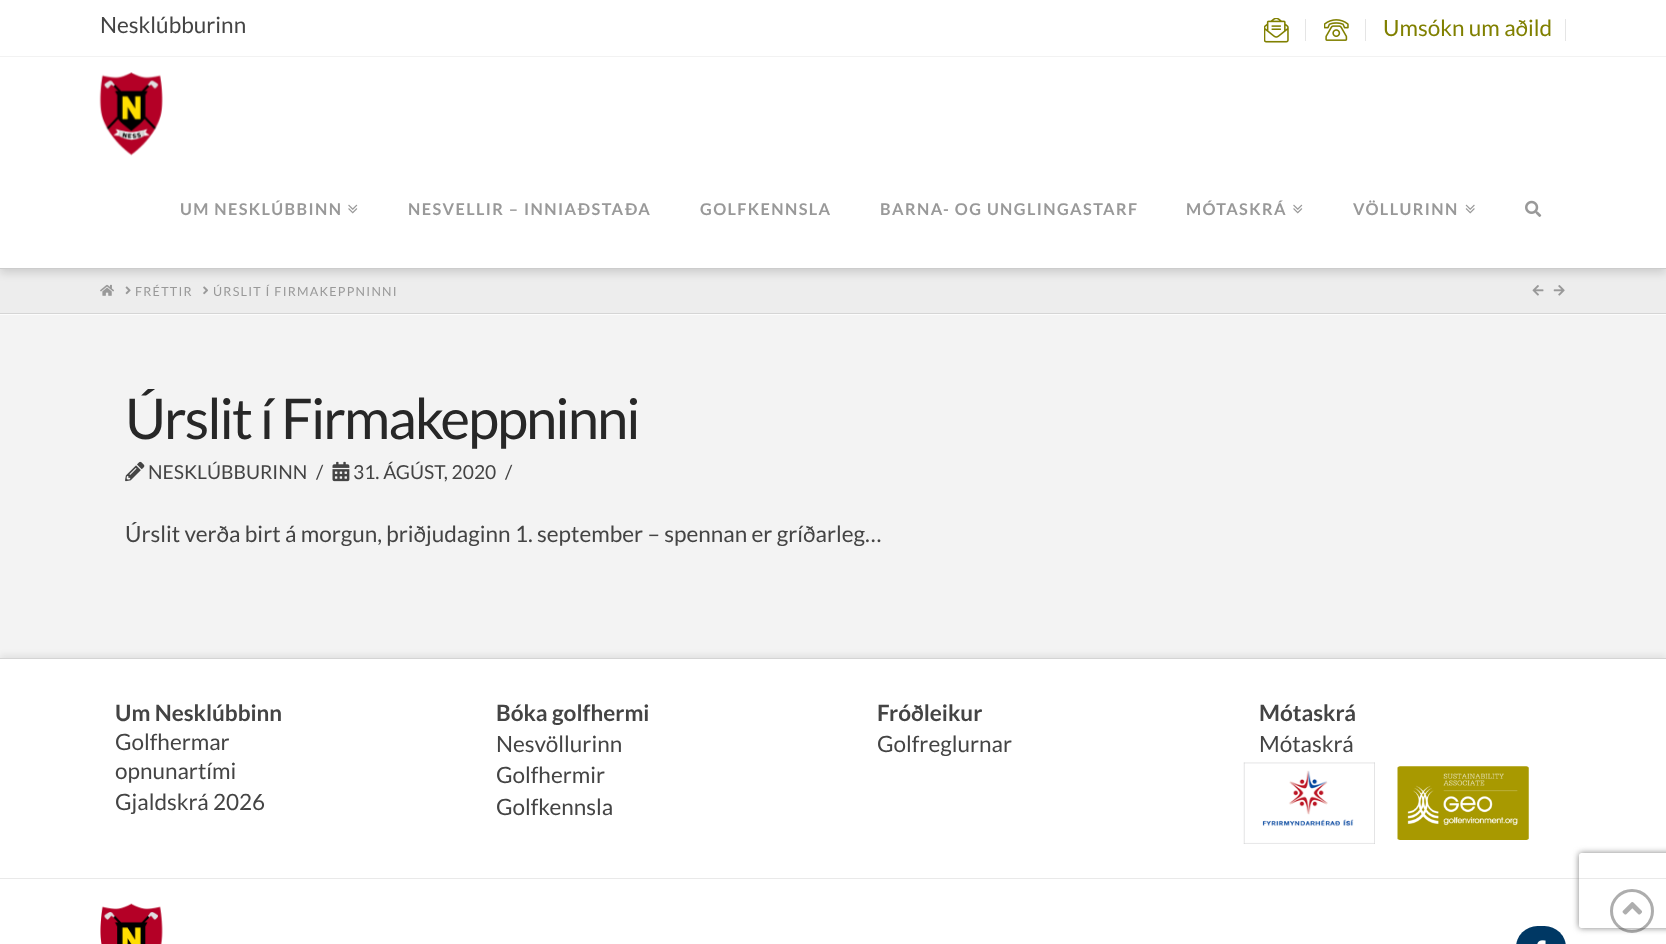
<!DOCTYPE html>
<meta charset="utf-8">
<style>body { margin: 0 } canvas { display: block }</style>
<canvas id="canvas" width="1666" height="944"></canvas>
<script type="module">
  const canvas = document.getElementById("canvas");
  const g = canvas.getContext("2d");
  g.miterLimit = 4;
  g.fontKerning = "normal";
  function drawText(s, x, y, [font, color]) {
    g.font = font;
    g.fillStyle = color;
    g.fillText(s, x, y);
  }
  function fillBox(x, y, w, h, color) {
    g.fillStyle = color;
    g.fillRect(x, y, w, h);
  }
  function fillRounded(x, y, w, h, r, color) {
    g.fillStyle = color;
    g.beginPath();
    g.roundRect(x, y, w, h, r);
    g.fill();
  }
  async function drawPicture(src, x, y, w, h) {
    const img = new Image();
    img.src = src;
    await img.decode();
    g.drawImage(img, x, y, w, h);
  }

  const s1 = ["22.5px Lato", "#444444"];
  const s2 = ["22.5px Lato", "#808000"];
  const s3 = ["bold 16.25px Lato", "#999999"];
  const s4 = ["12.5px Lato", "#999999"];
  const s5 = ["56.25px Lato", "#272727"];
  const s6 = ["19.25px Lato", "#444444"];
  const s7 = ["bold 22.5px Lato", "#444444"];

  fillBox(0, 0, 1666, 944, "#F3F3F3");
  fillBox(0, 269, 1666, 44, "#EDEDED");
  await drawPicture("pic7.png", 100, 284, 14, 12);
  await drawPicture("pic10.png", 1532, 285, 12, 11);
  await drawPicture("pic11.png", 1553, 285, 12, 11);
  g.fillStyle = "rgba(0, 0, 0, 0.13)";
  g.filter = "blur(4px)";
  g.beginPath();
  g.rect(0, 61, 1666, 212);
  g.fill();
  g.filter = "none";
  fillBox(0, 0, 1666, 268, "#FFFFFF");
  fillBox(0, 56, 1666, 1, "#F2F2F2");
  drawText("Nesklúbburinn", 100, 33, s1);
  await drawPicture("pic1.png", 1264, 18, 25, 25);
  fillBox(1305, 19, 1, 22, "#E5E5E5");
  await drawPicture("pic2.png", 1324, 19, 25, 22);
  fillBox(1365, 19, 1, 22, "#E5E5E5");
  drawText("Umsókn um aðild", 1383, 36, s2);
  fillBox(1565, 19, 1, 22, "#E5E5E5");
  fillBox(0, 268, 1666, 1, "#CCCCCC");
  await drawPicture("pic3.png", 99, 72, 64, 84);
  g.letterSpacing = "1.4px";
  drawText("UM NESKLÚBBINN", 180, 215, s3);
  await drawPicture("pic4.png", 348, 204, 10, 10);
  drawText("NESVELLIR – INNIAÐSTAÐA", 408, 215, s3);
  drawText("GOLFKENNSLA", 700, 215, s3);
  drawText("BARNA- OG UNGLINGASTARF", 880, 215, s3);
  drawText("MÓTASKRÁ", 1186, 215, s3);
  await drawPicture("pic4.png", 1293, 204, 10, 10);
  drawText("VÖLLURINN", 1353, 215, s3);
  await drawPicture("pic5.png", 1465, 204, 10, 10);
  await drawPicture("pic6.png", 1525, 200, 17, 17);
  fillBox(0, 314, 1666, 1, "#FCFCFC");
  fillBox(0, 313, 1666, 1, "#D5D5D5");
  await drawPicture("pic8.png", 125, 286, 6, 9);
  g.letterSpacing = "1.25px";
  drawText("FRÉTTIR", 135, 296, s4);
  await drawPicture("pic9.png", 203, 286, 5, 9);
  drawText("ÚRSLIT Í FIRMAKEPPNINNI", 213, 296, s4);
  g.letterSpacing = "-2px";
  drawText("Úrslit í Firmakeppninni", 125, 439, s5);
  await drawPicture("pic12.png", 125, 461, 20, 21);
  g.letterSpacing = "0px";
  drawText("NESKLÚBBURINN", 148, 479, s6);
  drawText("/", 316, 479, s6);
  await drawPicture("pic13.png", 332, 461, 18, 21);
  drawText("31. ÁGÚST, 2020", 353, 479, s6);
  drawText("/", 505, 479, s6);
  drawText("Úrslit verða birt á morgun, þriðjudaginn 1. september – spennan er gríðarleg…", 125, 542, s1);
  g.fillStyle = "rgba(0, 0, 0, 0.07)";
  g.filter = "blur(3px)";
  g.beginPath();
  g.rect(0, 655, 1666, 220);
  g.fill();
  g.filter = "none";
  fillBox(0, 659, 1666, 219, "#FFFFFF");
  fillBox(0, 658, 1666, 1, "#D4D4D4");
  drawText("Um Nesklúbbinn", 115, 721, s7);
  drawText("Golfhermar", 115, 750, s1);
  drawText("opnunartími", 115, 779, s1);
  drawText("Gjaldskrá 2026", 115, 810, s1);
  drawText("Bóka golfhermi", 496, 721, s7);
  drawText("Nesvöllurinn", 496, 752, s1);
  drawText("Golfhermir", 496, 783, s1);
  drawText("Golfkennsla", 496, 815, s1);
  drawText("Fróðleikur", 877, 721, s7);
  drawText("Golfreglurnar", 877, 752, s1);
  drawText("Mótaskrá", 1259, 721, s7);
  drawText("Mótaskrá", 1259, 752, s1);
  await drawPicture("pic14.png", 1243, 762, 132, 82);
  await drawPicture("pic15.png", 1397, 766, 132, 74);
  fillBox(0, 879, 1666, 65, "#FFFFFF");
  fillBox(0, 878, 1666, 1, "#E9E9E9");
  await drawPicture("pic16.png", 100, 903, 63, 41);
  fillRounded(1516, 926, 50, 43, 25, "#003864");
  await drawPicture("pic17.png", 1537, 940, 9, 4);
  g.save();
  g.beginPath();
  g.moveTo(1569, 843);
  g.lineTo(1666, 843);
  g.lineTo(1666, 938);
  g.lineTo(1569, 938);
  g.closePath();
  g.moveTo(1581.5, 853);
  g.lineTo(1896.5, 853);
  g.bezierCurveTo(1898, 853, 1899, 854, 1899, 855.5);
  g.lineTo(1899, 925.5);
  g.bezierCurveTo(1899, 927, 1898, 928, 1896.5, 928);
  g.lineTo(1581.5, 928);
  g.bezierCurveTo(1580, 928, 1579, 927, 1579, 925.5);
  g.lineTo(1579, 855.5);
  g.bezierCurveTo(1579, 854, 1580, 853, 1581.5, 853);
  g.closePath();
  g.clip("evenodd");
  g.fillStyle = "#808080";
  g.filter = "blur(3px)";
  g.beginPath();
  g.roundRect(1579, 853, 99, 75, 2.5);
  g.fill();
  g.filter = "none";
  g.restore();
  g.beginPath();
  g.arc(1632, 911, 20.5, 0, Math.PI * 2);
  g.strokeStyle = "rgba(39, 39, 39, 0.38)";
  g.lineWidth = 3;
  g.stroke();
  await drawPicture("pic18.png", 1622, 902, 20, 13);
</script>
